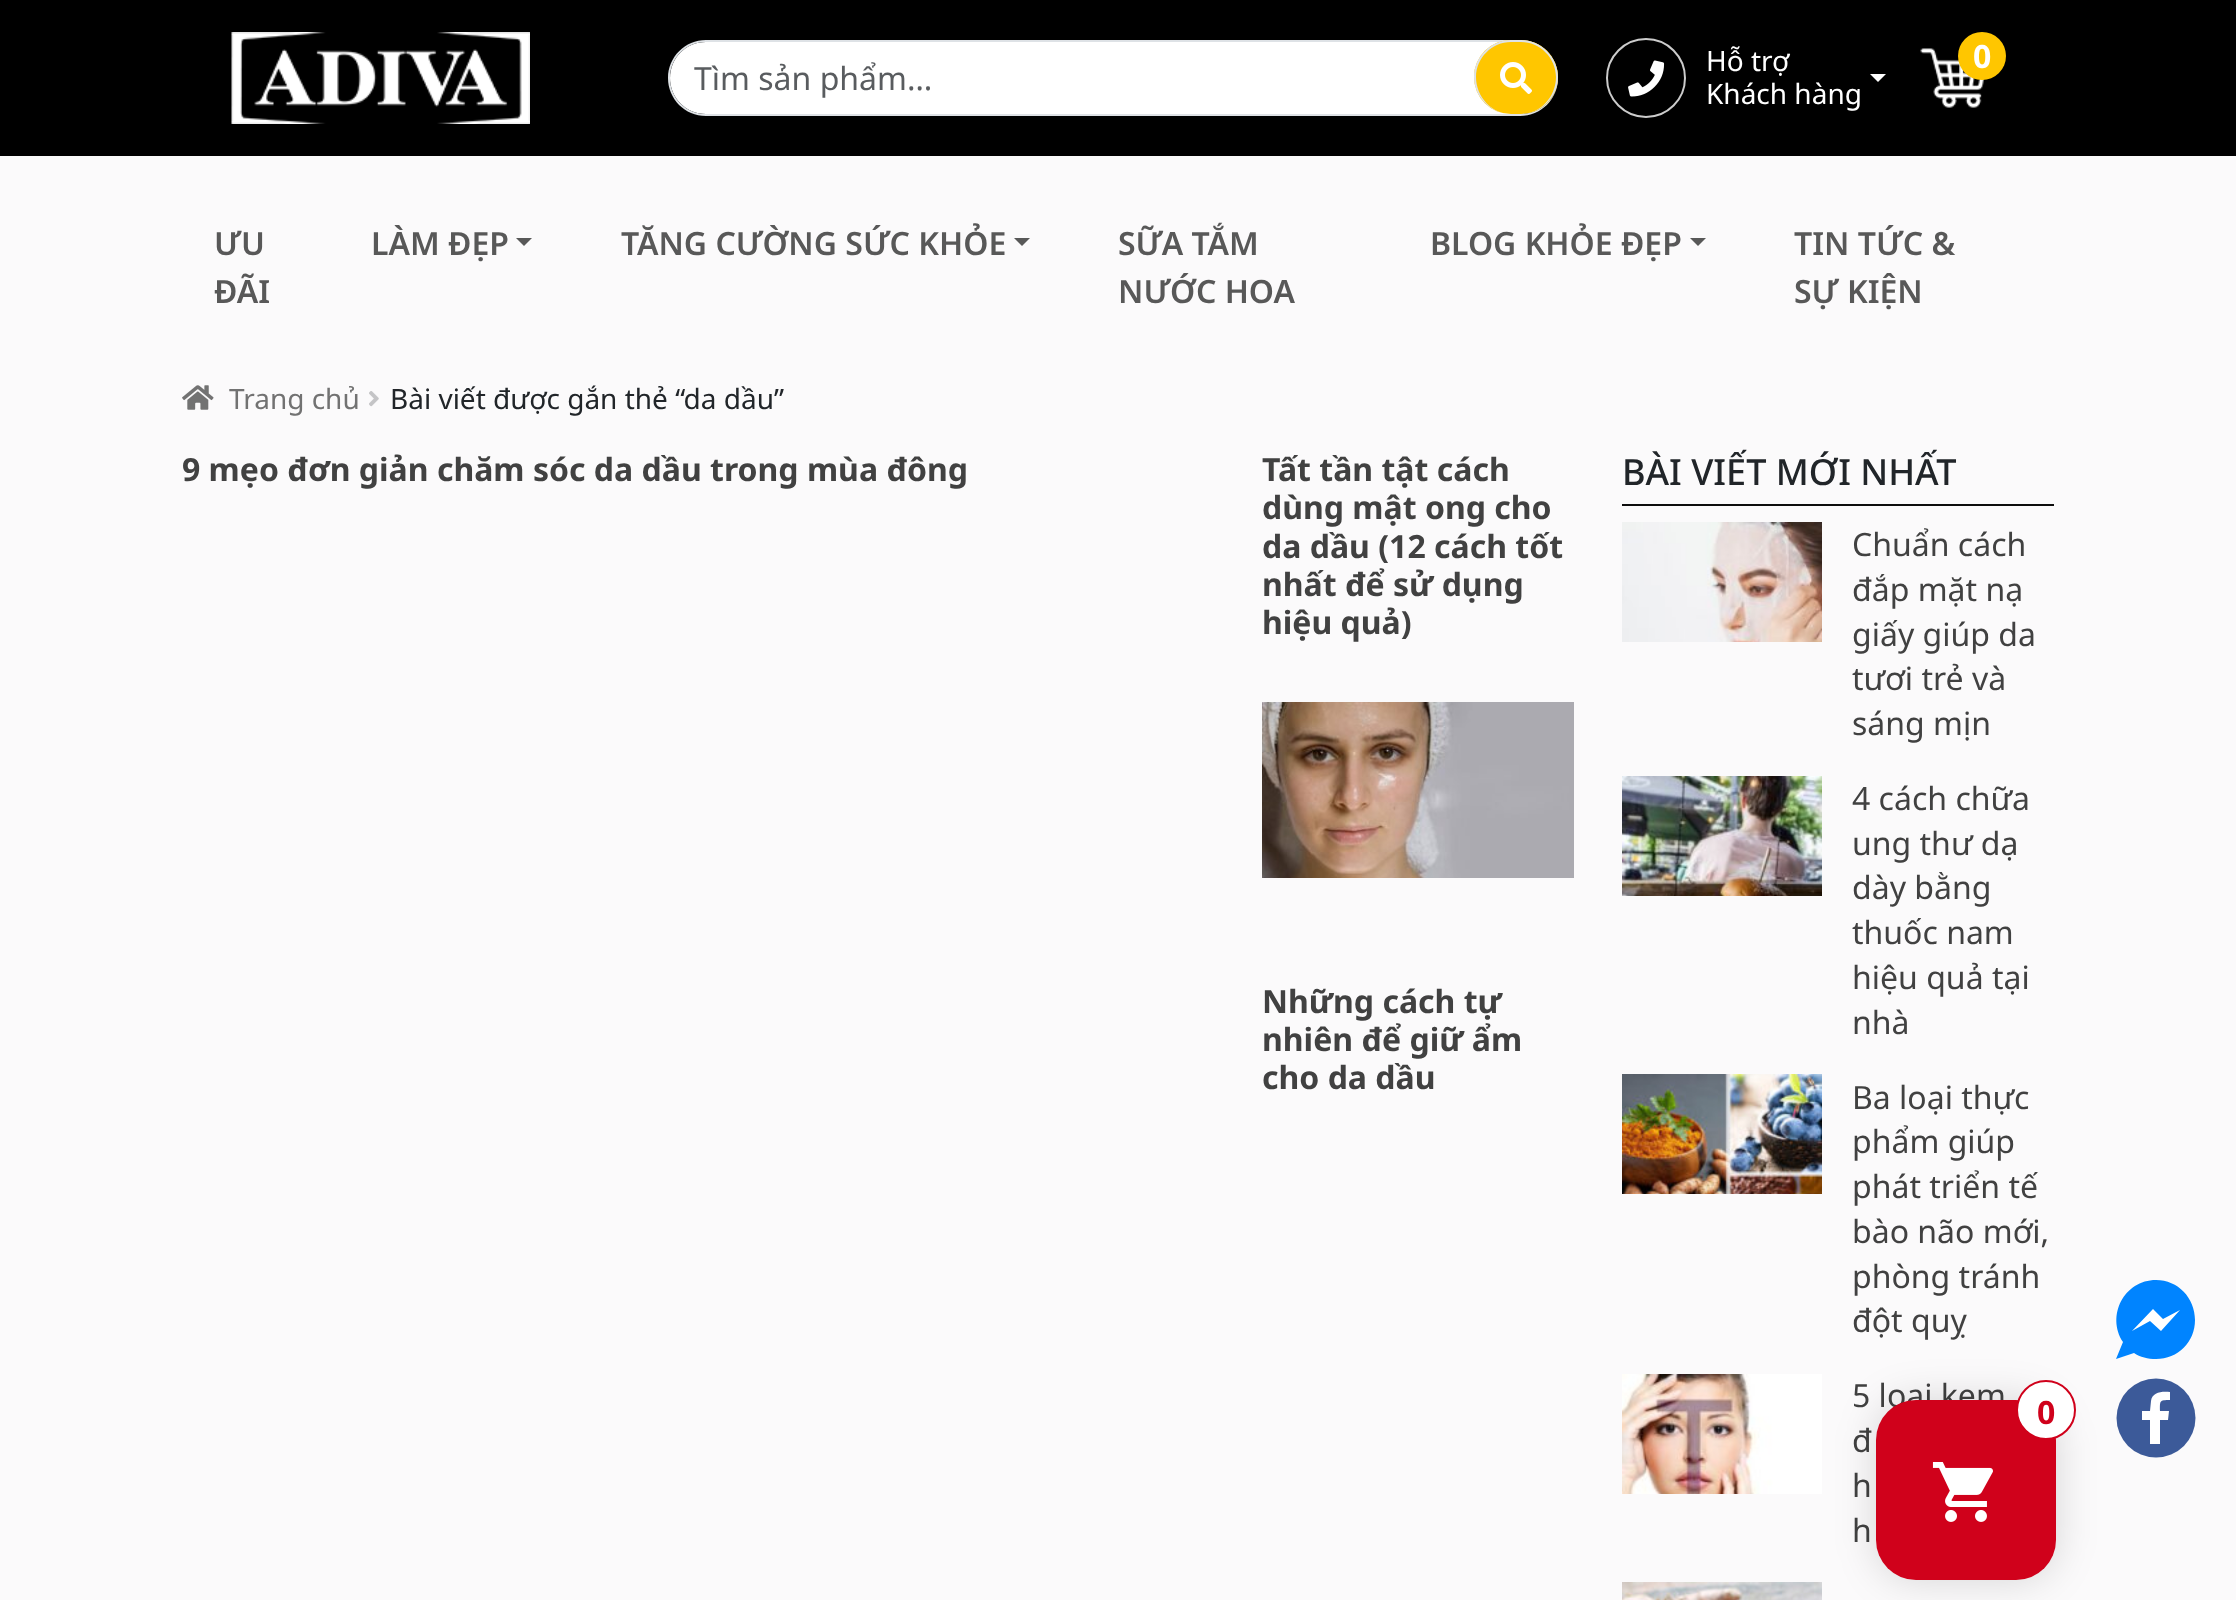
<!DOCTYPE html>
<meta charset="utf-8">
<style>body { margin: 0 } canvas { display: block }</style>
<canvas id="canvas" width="2236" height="1600"></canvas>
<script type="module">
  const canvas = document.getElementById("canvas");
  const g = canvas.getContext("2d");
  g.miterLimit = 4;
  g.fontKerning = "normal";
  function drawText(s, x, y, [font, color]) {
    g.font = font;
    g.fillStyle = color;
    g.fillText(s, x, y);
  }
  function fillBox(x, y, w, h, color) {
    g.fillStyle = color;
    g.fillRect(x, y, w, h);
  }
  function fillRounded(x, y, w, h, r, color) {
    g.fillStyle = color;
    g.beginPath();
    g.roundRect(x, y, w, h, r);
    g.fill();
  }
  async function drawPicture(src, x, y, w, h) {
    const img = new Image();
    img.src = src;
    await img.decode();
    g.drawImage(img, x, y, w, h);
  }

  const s1 = ["32px Noto Sans", "#595C5F"];
  const s2 = ["28px Noto Sans", "#FFFFFF"];
  const s3 = ["bold 32px Noto Sans", "#FFFFFF"];
  const s4 = ["600 32px Noto Sans", "#585858"];
  const s5 = ["28px Noto Sans", "#727272"];
  const s6 = ["28px Noto Sans", "#212529"];
  const s7 = ["bold 32px Noto Sans", "#414141"];
  const s8 = ["500 36px Noto Sans", "#212529"];
  const s9 = ["32px Noto Sans", "#414141"];
  const s10 = ["bold 32px Noto Sans", "#D0011B"];

  fillBox(0, 0, 2236, 1600, "#FBFAFB");
  fillBox(0, 0, 2236, 156, "#000000");
  await drawPicture("pic1.png", 231, 32, 299, 92);
  g.fillStyle = "#FFFFFF";
  g.beginPath();
  g.moveTo(706, 42);
  g.lineTo(1520, 42);
  g.bezierCurveTo(1541, 42, 1558, 58, 1558, 78);
  g.bezierCurveTo(1558, 98, 1541, 114, 1520, 114);
  g.lineTo(706, 114);
  g.bezierCurveTo(686, 114, 670, 98, 670, 78);
  g.bezierCurveTo(670, 58, 686, 42, 706, 42);
  g.closePath();
  g.fill();
  g.fillStyle = "#DEE2E6";
  g.beginPath();
  g.moveTo(706, 40);
  g.lineTo(1520, 40);
  g.bezierCurveTo(1541, 40, 1558, 57, 1558, 78);
  g.bezierCurveTo(1558, 99, 1541, 116, 1520, 116);
  g.lineTo(706, 116);
  g.bezierCurveTo(685, 116, 668, 99, 668, 78);
  g.bezierCurveTo(668, 57, 685, 40, 706, 40);
  g.closePath();
  g.moveTo(706, 42);
  g.lineTo(1520, 42);
  g.bezierCurveTo(1541, 42, 1558, 58, 1558, 78);
  g.bezierCurveTo(1558, 98, 1541, 114, 1520, 114);
  g.lineTo(706, 114);
  g.bezierCurveTo(686, 114, 670, 98, 670, 78);
  g.bezierCurveTo(670, 58, 686, 42, 706, 42);
  g.closePath();
  g.fill("evenodd");
  drawText("Tìm sản phẩm…", 694, 90, s1);
  fillRounded(1474, 40, 84, 74, 37, "#FFC600");
  g.fillStyle = "#DEE2E6";
  g.beginPath();
  g.moveTo(1511, 40);
  g.lineTo(1521, 40);
  g.bezierCurveTo(1541, 40, 1558, 57, 1558, 77);
  g.bezierCurveTo(1558, 97, 1541, 114, 1521, 114);
  g.lineTo(1511, 114);
  g.bezierCurveTo(1491, 114, 1474, 97, 1474, 77);
  g.bezierCurveTo(1474, 57, 1491, 40, 1511, 40);
  g.closePath();
  g.moveTo(1511, 42);
  g.lineTo(1521, 42);
  g.bezierCurveTo(1540, 42, 1556, 58, 1556, 77);
  g.bezierCurveTo(1556, 97, 1540, 114, 1521, 114);
  g.lineTo(1511, 114);
  g.bezierCurveTo(1492, 114, 1476, 97, 1476, 77);
  g.bezierCurveTo(1476, 58, 1492, 42, 1511, 42);
  g.closePath();
  g.fill("evenodd");
  await drawPicture("pic2.png", 1500, 62, 32, 32);
  g.beginPath();
  g.arc(1646, 78, 39, 0, Math.PI * 2);
  g.strokeStyle = "#CCCCCC";
  g.lineWidth = 2;
  g.stroke();
  await drawPicture("pic3.png", 1628, 60, 37, 37);
  drawText("Hỗ trợ", 1706, 71, s2);
  drawText("Khách hàng", 1706, 104, s2);
  g.beginPath();
  g.moveTo(1870, 74);
  g.lineTo(1886, 74);
  g.lineTo(1878, 82);
  g.closePath();
  g.fill();
  await drawPicture("pic4.png", 1920, 48, 65, 60);
  g.fillStyle = "#FFC600";
  g.beginPath();
  g.arc(1982, 56, 24, 0, Math.PI * 2);
  g.fill();
  drawText("0", 1973, 68, s3);
  drawText("ƯU", 214, 255, s4);
  drawText("ĐÃI", 214, 303, s4);
  drawText("LÀM ĐẸP", 371, 255, s4);
  g.beginPath();
  g.moveTo(516, 238);
  g.lineTo(532, 238);
  g.lineTo(524, 246);
  g.closePath();
  g.fill();
  drawText("TĂNG CƯỜNG SỨC KHỎE", 621, 255, s4);
  g.beginPath();
  g.moveTo(1014, 238);
  g.lineTo(1030, 238);
  g.lineTo(1022, 246);
  g.closePath();
  g.fill();
  drawText("SỮA TẮM", 1118, 255, s4);
  drawText("NƯỚC HOA", 1118, 303, s4);
  drawText("BLOG KHỎE ĐẸP", 1430, 255, s4);
  g.beginPath();
  g.moveTo(1690, 238);
  g.lineTo(1706, 238);
  g.lineTo(1698, 246);
  g.closePath();
  g.fill();
  drawText("TIN TỨC &", 1794, 255, s4);
  drawText("SỰ KIỆN", 1794, 303, s4);
  await drawPicture("pic5.png", 182, 385, 32, 25);
  drawText("Trang chủ", 229, 409, s5);
  await drawPicture("pic6.png", 369, 391, 10, 16);
  drawText("Bài viết được gắn thẻ “da dầu”", 390, 409, s6);
  drawText("9 mẹo đơn giản chăm sóc da dầu trong mùa đông", 182, 481, s7);
  drawText("Tất tần tật cách", 1262, 481, s7);
  drawText("dùng mật ong cho", 1262, 519, s7);
  drawText("da dầu (12 cách tốt", 1262, 558, s7);
  drawText("nhất để sử dụng", 1262, 596, s7);
  drawText("hiệu quả)", 1262, 634, s7);
  await drawPicture("pic7.png", 1262, 702, 312, 176);
  drawText("Những cách tự", 1262, 1013, s7);
  drawText("nhiên để giữ ẩm", 1262, 1051, s7);
  drawText("cho da dầu", 1262, 1089, s7);
  fillBox(1622, 504, 432, 2, "#0D0D0D");
  drawText("BÀI VIẾT MỚI NHẤT", 1622, 485, s8);
  await drawPicture("pic8.png", 1622, 522, 200, 120);
  drawText("Chuẩn cách", 1852, 556, s9);
  drawText("đắp mặt nạ", 1852, 601, s9);
  drawText("giấy giúp da", 1852, 646, s9);
  drawText("tươi trẻ và", 1852, 690, s9);
  drawText("sáng mịn", 1852, 735, s9);
  await drawPicture("pic9.png", 1622, 776, 200, 120);
  drawText("4 cách chữa", 1852, 810, s9);
  drawText("ung thư dạ", 1852, 855, s9);
  drawText("dày bằng", 1852, 899, s9);
  drawText("thuốc nam", 1852, 944, s9);
  drawText("hiệu quả tại", 1852, 989, s9);
  drawText("nhà", 1852, 1034, s9);
  await drawPicture("pic10.png", 1622, 1074, 200, 120);
  drawText("Ba loại thực", 1852, 1109, s9);
  drawText("phẩm giúp", 1852, 1153, s9);
  drawText("phát triển tế", 1852, 1198, s9);
  drawText("bào não mới,", 1852, 1243, s9);
  drawText("phòng tránh", 1852, 1288, s9);
  drawText("đột quỵ", 1852, 1332, s9);
  await drawPicture("pic11.png", 1622, 1374, 200, 120);
  drawText("5 loại kem", 1852, 1407, s9);
  drawText("đ", 1852, 1452, s9);
  drawText("h", 1852, 1497, s9);
  drawText("h", 1852, 1542, s9);
  await drawPicture("pic12.png", 1622, 1582, 200, 18);
  g.fillStyle = "#0084FF";
  g.beginPath();
  g.moveTo(2156, 1280);
  g.bezierCurveTo(2124, 1280, 2106, 1316, 2123, 1342);
  g.lineTo(2116, 1359);
  g.lineTo(2134, 1353);
  g.bezierCurveTo(2140, 1357, 2148, 1359, 2156, 1359);
  g.bezierCurveTo(2178, 1359, 2195, 1342, 2195, 1320);
  g.bezierCurveTo(2195, 1298, 2178, 1280, 2156, 1280);
  g.closePath();
  g.fill();
  g.fillStyle = "#FFFFFF";
  g.beginPath();
  g.moveTo(2132, 1331);
  g.lineTo(2153, 1309);
  g.lineTo(2163, 1319);
  g.lineTo(2180, 1310);
  g.lineTo(2161, 1331);
  g.lineTo(2150, 1321);
  g.closePath();
  g.fill();
  g.fillStyle = "#3C5A99";
  g.beginPath();
  g.arc(2156, 1418, 39.5, 0, Math.PI * 2);
  g.fill();
  g.fillStyle = "#FFFFFF";
  g.beginPath();
  g.moveTo(2160, 1444);
  g.lineTo(2160, 1420);
  g.lineTo(2168, 1420);
  g.lineTo(2169, 1411);
  g.lineTo(2160, 1411);
  g.bezierCurveTo(2160, 1401, 2159, 1400, 2170, 1400);
  g.lineTo(2170, 1392);
  g.bezierCurveTo(2162, 1391, 2152, 1392, 2151, 1401);
  g.lineTo(2150, 1411);
  g.lineTo(2142, 1411);
  g.lineTo(2142, 1420);
  g.lineTo(2150, 1420);
  g.lineTo(2150, 1444);
  g.closePath();
  g.fill();
  g.fillStyle = "rgba(0, 0, 0, 0.15)";
  g.filter = "blur(20px)";
  g.beginPath();
  g.roundRect(1876, 1400, 180, 180, 40);
  g.fill();
  g.filter = "none";
  fillRounded(1876, 1400, 180, 180, 40, "#D0011B");
  g.fillStyle = "#FFFFFF";
  g.beginPath();
  g.arc(2046, 1410, 29, 0, Math.PI * 2);
  g.fill();
  g.strokeStyle = "#D0011B";
  g.stroke();
  drawText("0", 2037, 1424, s10);
  await drawPicture("pic13.png", 1932, 1462, 61, 60);
</script>
